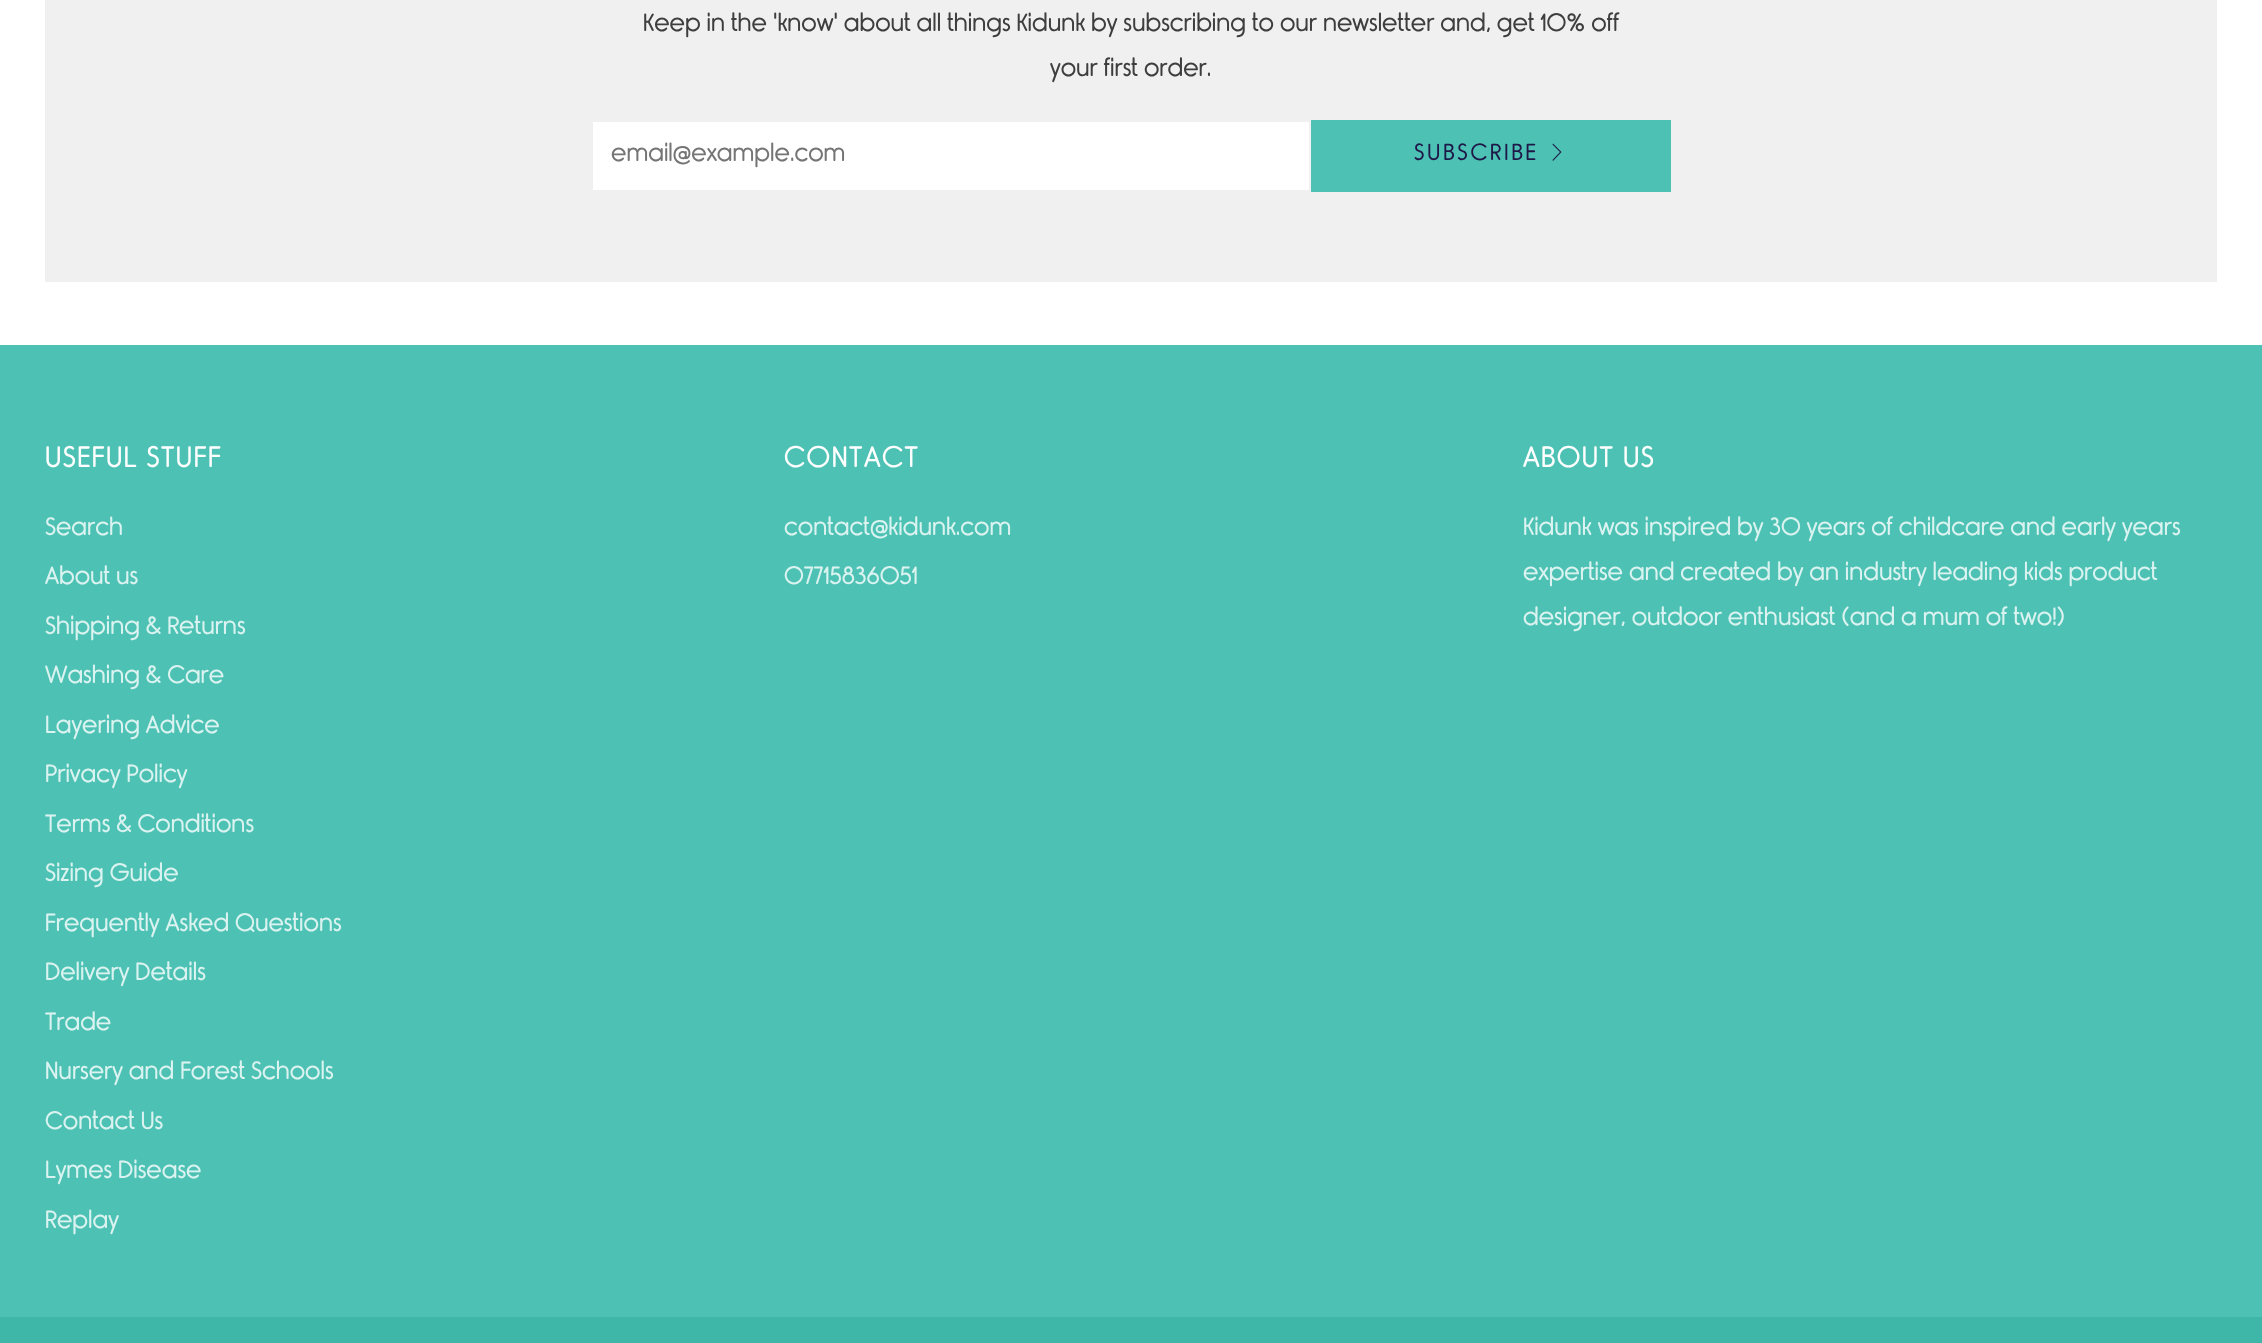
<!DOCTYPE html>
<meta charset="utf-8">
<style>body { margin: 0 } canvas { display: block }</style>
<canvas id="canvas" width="2262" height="1343"></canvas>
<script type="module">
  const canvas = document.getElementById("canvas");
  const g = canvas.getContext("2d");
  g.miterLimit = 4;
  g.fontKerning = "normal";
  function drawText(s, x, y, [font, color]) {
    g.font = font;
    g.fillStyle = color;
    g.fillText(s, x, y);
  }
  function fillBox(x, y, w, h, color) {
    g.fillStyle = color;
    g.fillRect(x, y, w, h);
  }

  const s1 = ["24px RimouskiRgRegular", "#3E3E3E"];
  const s2 = ["24px RimouskiRgRegular", "#757575"];
  const s3 = ["22.5px RimouskiRgRegular", "#1E1848"];
  const s4 = ["28.5px RimouskiRgRegular", "#FFFFFF"];
  const s5 = ["24px RimouskiRgRegular", "#DBF3F0"];

  fillBox(0, 0, 2262, 1343, "#FFFFFF");
  fillBox(45, 0, 2172, 282, "#F0F0F0");
  drawText("Keep in the 'know' about all things Kidunk by subscribing to our newsletter and, get 10% off", 643, 31, s1);
  drawText("your first order.", 1050, 76, s1);
  fillBox(593, 122, 716, 68, "#FFFFFF");
  drawText("email@example.com", 611, 161, s2);
  fillBox(1311, 120, 360, 72, "#4DC2B4");
  g.letterSpacing = "3px";
  drawText("SUBSCRIBE", 1414, 160, s3);
  g.beginPath();
  g.moveTo(1552.5, 160);
  g.lineTo(1553, 161);
  g.lineTo(1561.5, 152);
  g.lineTo(1553, 143.5);
  g.lineTo(1552.5, 144.5);
  g.lineTo(1560, 152);
  g.closePath();
  g.fill();
  fillBox(0, 345, 2262, 972, "#4DC2B4");
  g.letterSpacing = "1.5px";
  drawText("USEFUL STUFF", 45, 467, s4);
  g.letterSpacing = "0px";
  drawText("Search", 45, 535, s5);
  drawText("About us", 45, 584, s5);
  drawText("Shipping & Returns", 45, 634, s5);
  drawText("Washing & Care", 45, 683, s5);
  drawText("Layering Advice", 45, 733, s5);
  drawText("Privacy Policy", 45, 782, s5);
  drawText("Terms & Conditions", 45, 832, s5);
  drawText("Sizing Guide", 45, 881, s5);
  drawText("Frequently Asked Questions", 45, 931, s5);
  drawText("Delivery Details", 45, 980, s5);
  drawText("Trade", 45, 1030, s5);
  drawText("Nursery and Forest Schools", 45, 1079, s5);
  drawText("Contact Us", 45, 1129, s5);
  drawText("Lymes Disease", 45, 1178, s5);
  drawText("Replay", 45, 1228, s5);
  g.letterSpacing = "1.5px";
  drawText("CONTACT", 784, 467, s4);
  g.letterSpacing = "0px";
  drawText("contact@kidunk.com", 784, 535, s5);
  drawText("07715836051", 784, 584, s5);
  g.letterSpacing = "1.5px";
  drawText("ABOUT US", 1523, 467, s4);
  g.letterSpacing = "0px";
  drawText("Kidunk was inspired by 30 years of childcare and early years", 1523, 535, s5);
  drawText("expertise and created by an industry leading kids product", 1523, 580, s5);
  drawText("designer, outdoor enthusiast (and a mum of two!)", 1523, 625, s5);
  fillBox(0, 1317, 2262, 26, "#3FB7A8");
</script>
